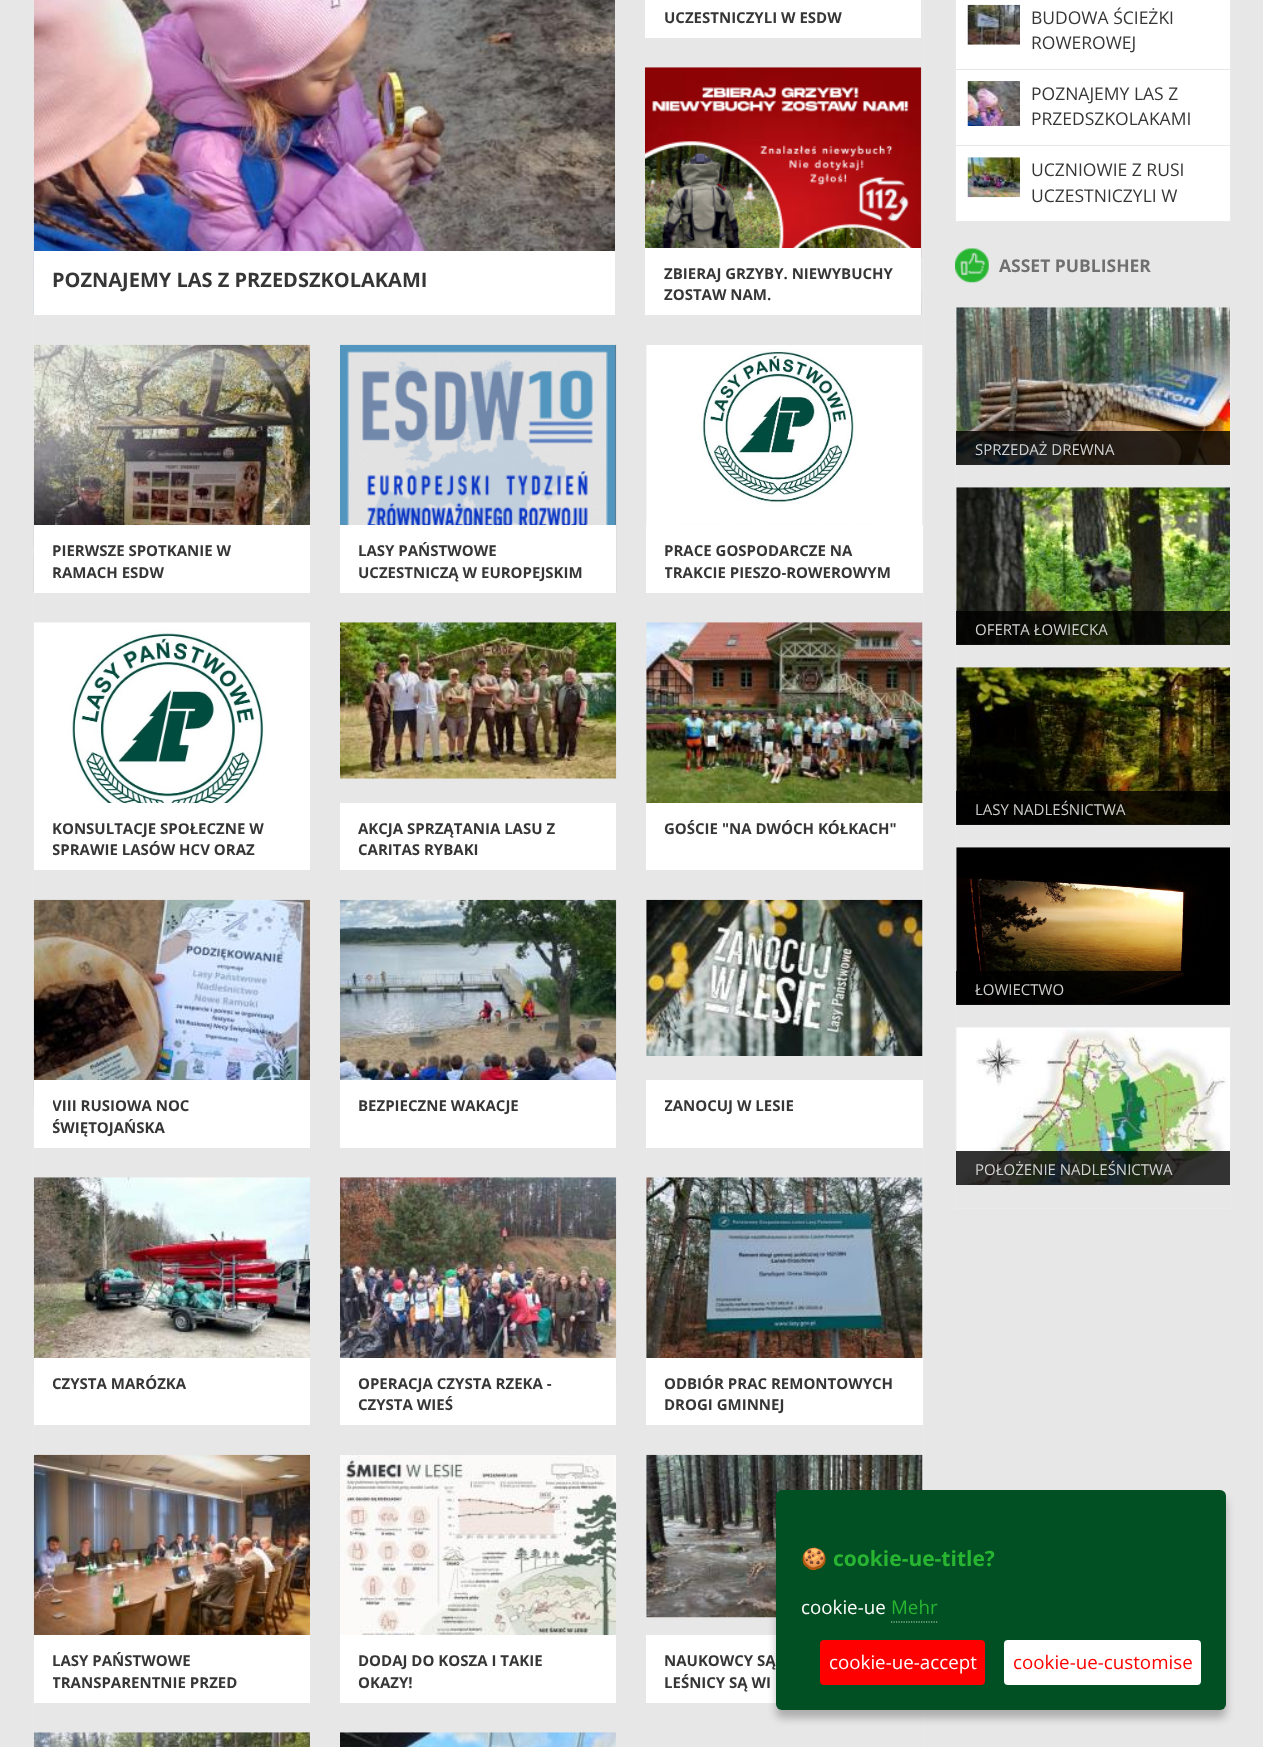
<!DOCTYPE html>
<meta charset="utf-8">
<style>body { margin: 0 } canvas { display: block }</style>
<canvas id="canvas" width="1263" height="1747"></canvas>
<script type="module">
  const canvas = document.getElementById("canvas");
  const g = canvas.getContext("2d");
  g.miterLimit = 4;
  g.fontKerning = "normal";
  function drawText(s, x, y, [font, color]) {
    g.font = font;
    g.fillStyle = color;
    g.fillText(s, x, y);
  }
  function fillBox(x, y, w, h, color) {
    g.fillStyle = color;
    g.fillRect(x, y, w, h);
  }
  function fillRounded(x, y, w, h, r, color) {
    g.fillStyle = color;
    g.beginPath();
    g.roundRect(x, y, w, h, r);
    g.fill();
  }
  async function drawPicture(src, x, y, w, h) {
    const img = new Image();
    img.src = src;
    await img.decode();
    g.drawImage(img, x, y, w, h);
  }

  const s1 = ["bold 15px Open Sans", "#363636"];
  const s2 = ["bold 20px Open Sans", "#363636"];
  const s3 = ["17.5px Open Sans", "#363636"];
  const s4 = ["bold 17.5px Open Sans", "#707070"];
  const s5 = ["15px Open Sans", "#D2D2D2"];
  const s6 = ["15px Open Sans", "#CDCDCC"];
  const s7 = ["bold 21px Noto Color Emoji", "#28B532"];
  const s8 = ["bold 21px Open Sans", "#28B532"];
  const s9 = ["18.75px Open Sans", "#FFFFFF"];
  const s10 = ["18.75px Open Sans", "#28B532"];
  const s11 = ["18.75px Open Sans", "#FF0000"];

  fillBox(0, 0, 1263, 1747, "#E7E7E7");
  fillBox(923, 0, 1, 1747, "#EAEAEA");
  fillBox(33, 0, 1, 1747, "#EAEAEA");
  fillBox(645, 0, 276, 38, "#FFFFFF");
  drawText("UCZESTNICZYLI W ESDW", 664, 23, s1);
  await drawPicture("pic1.png", 33, 0, 582, 315);
  fillBox(34, 251, 581, 64, "#FFFFFF");
  drawText("POZNAJEMY LAS Z PRZEDSZKOLAKAMI", 52, 287, s2);
  await drawPicture("pic2.png", 645, 67, 277, 248);
  fillBox(645, 248, 276, 67, "#FFFFFF");
  drawText("ZBIERAJ GRZYBY. NIEWYBUCHY", 664, 279, s1);
  drawText("ZOSTAW NAM.", 664, 300, s1);
  await drawPicture("pic3.png", 33, 344, 277, 248);
  fillBox(34, 525, 276, 68, "#FFFFFF");
  drawText("PIERWSZE SPOTKANIE W", 52, 556, s1);
  drawText("RAMACH ESDW", 52, 578, s1);
  await drawPicture("pic4.png", 340, 344, 277, 248);
  fillBox(340, 525, 276, 68, "#FFFFFF");
  drawText("LASY PAŃSTWOWE", 358, 556, s1);
  drawText("UCZESTNICZĄ W EUROPEJSKIM", 358, 578, s1);
  await drawPicture("pic5.png", 646, 345, 277, 180);
  fillBox(646, 525, 277, 68, "#FFFFFF");
  drawText("PRACE GOSPODARCZE NA", 664, 556, s1);
  g.save();
  g.beginPath();
  g.rect(665, 540, 239, 44);
  g.clip();
  drawText("TRAKCIE PIESZO-ROWEROWYM", 664, 578, s1);
  g.restore();
  await drawPicture("pic6.png", 34, 622, 276, 181);
  fillBox(34, 803, 276, 67, "#FFFFFF");
  drawText("KONSULTACJE SPOŁECZNE W", 52, 834, s1);
  g.save();
  g.beginPath();
  g.rect(53, 818, 238, 43);
  g.clip();
  drawText("SPRAWIE LASÓW HCV ORAZ", 52, 855, s1);
  g.restore();
  await drawPicture("pic7.png", 340, 622, 277, 157);
  fillBox(340, 803, 276, 67, "#FFFFFF");
  drawText("AKCJA SPRZĄTANIA LASU Z", 358, 834, s1);
  drawText("CARITAS RYBAKI", 358, 855, s1);
  await drawPicture("pic8.png", 646, 622, 277, 181);
  fillBox(646, 803, 277, 67, "#FFFFFF");
  drawText("GOŚCIE \"NA DWÓCH KÓŁKACH\"", 664, 834, s1);
  await drawPicture("pic9.png", 33, 899, 277, 208);
  fillBox(34, 1080, 276, 68, "#FFFFFF");
  g.save();
  g.beginPath();
  g.rect(53, 1095, 238, 44);
  g.clip();
  drawText("VIII RUSIOWA NOC", 52, 1111, s1);
  drawText("ŚWIĘTOJAŃSKA", 52, 1133, s1);
  g.restore();
  await drawPicture("pic10.png", 340, 899, 277, 208);
  fillBox(340, 1080, 276, 68, "#FFFFFF");
  drawText("BEZPIECZNE WAKACJE", 358, 1111, s1);
  await drawPicture("pic11.png", 646, 899, 277, 157);
  fillBox(646, 1080, 277, 68, "#FFFFFF");
  g.save();
  g.beginPath();
  g.rect(665, 1095, 129, 21);
  g.clip();
  drawText("ZANOCUJ W LESIE", 664, 1111, s1);
  g.restore();
  await drawPicture("pic12.png", 33, 1177, 277, 208);
  fillBox(34, 1358, 276, 67, "#FFFFFF");
  g.save();
  g.beginPath();
  g.rect(53, 1373, 133, 21);
  g.clip();
  drawText("CZYSTA MARÓZKA", 52, 1389, s1);
  g.restore();
  await drawPicture("pic13.png", 340, 1177, 277, 208);
  fillBox(340, 1358, 276, 67, "#FFFFFF");
  drawText("OPERACJA CZYSTA RZEKA -", 358, 1389, s1);
  drawText("CZYSTA WIEŚ", 358, 1410, s1);
  await drawPicture("pic14.png", 646, 1177, 277, 181);
  fillBox(646, 1358, 277, 67, "#FFFFFF");
  drawText("ODBIÓR PRAC REMONTOWYCH", 664, 1389, s1);
  drawText("DROGI GMINNEJ", 664, 1410, s1);
  await drawPicture("pic15.png", 33, 1454, 277, 186);
  fillBox(34, 1635, 276, 68, "#FFFFFF");
  drawText("LASY PAŃSTWOWE", 52, 1666, s1);
  g.save();
  g.beginPath();
  g.rect(53, 1650, 238, 44);
  g.clip();
  drawText("TRANSPARENTNIE PRZED", 52, 1688, s1);
  g.restore();
  await drawPicture("pic16.png", 340, 1455, 277, 209);
  fillBox(340, 1635, 276, 68, "#FFFFFF");
  drawText("DODAJ DO KOSZA I TAKIE", 358, 1666, s1);
  drawText("OKAZY!", 358, 1688, s1);
  await drawPicture("pic17.png", 646, 1454, 277, 164);
  fillBox(646, 1635, 130, 68, "#FFFFFF");
  drawText("NAUKOWCY SĄ", 664, 1666, s1);
  drawText("LEŚNICY SĄ WI", 664, 1688, s1);
  await drawPicture("pic18.png", 33, 1732, 277, 15);
  await drawPicture("pic19.png", 340, 1732, 276, 15);
  fillBox(1230, 0, 1, 223, "#EAEAEA");
  fillBox(955, 221, 276, 1, "#EAEAEA");
  fillBox(955, 0, 1, 223, "#EAEAEA");
  fillBox(956, 0, 274, 69, "#FFFFFF");
  await drawPicture("pic20.png", 967, 4, 53, 41);
  drawText("BUDOWA ŚCIEŻKI", 1031, 24, s3);
  drawText("ROWEROWEJ", 1031, 49, s3);
  fillBox(956, 70, 274, 75, "#FFFFFF");
  await drawPicture("pic21.png", 967, 81, 53, 45);
  drawText("POZNAJEMY LAS Z", 1031, 100, s3);
  drawText("PRZEDSZKOLAKAMI", 1031, 125, s3);
  fillBox(956, 146, 274, 75, "#FFFFFF");
  await drawPicture("pic22.png", 967, 157, 53, 41);
  drawText("UCZNIOWIE Z RUSI", 1031, 176, s3);
  drawText("UCZESTNICZYLI W", 1031, 202, s3);
  await drawPicture("pic23.png", 955, 248, 34, 35);
  drawText("ASSET PUBLISHER", 999, 272, s4);
  fillBox(1230, 308, 1, 901, "#EAEAEA");
  fillBox(955, 1208, 276, 1, "#EAEAEA");
  fillBox(955, 308, 1, 901, "#EAEAEA");
  await drawPicture("pic24.png", 956, 307, 274, 158);
  fillBox(956, 431, 274, 34, "rgba(0, 0, 0, 0.8)");
  drawText("SPRZEDAŻ DREWNA", 975, 455, s5);
  await drawPicture("pic25.png", 956, 487, 274, 158);
  fillBox(956, 611, 274, 34, "rgba(0, 0, 0, 0.8)");
  drawText("OFERTA ŁOWIECKA", 975, 635, s5);
  await drawPicture("pic26.png", 956, 667, 274, 158);
  fillBox(956, 791, 274, 34, "rgba(0, 0, 0, 0.8)");
  drawText("LASY NADLEŚNICTWA", 975, 815, s6);
  await drawPicture("pic27.png", 956, 847, 274, 158);
  fillBox(956, 971, 274, 34, "rgba(0, 0, 0, 0.8)");
  drawText("ŁOWIECTWO", 975, 995, s6);
  await drawPicture("pic28.png", 956, 1027, 274, 158);
  fillBox(956, 1151, 274, 34, "rgba(0, 0, 0, 0.8)");
  drawText("POŁOŻENIE NADLEŚNICTWA", 975, 1175, s5);
  g.fillStyle = "rgba(0, 0, 0, 0.25)";
  g.filter = "blur(4px)";
  g.beginPath();
  g.roundRect(776, 1498, 450, 220, 6);
  g.fill();
  g.filter = "none";
  fillRounded(776, 1490, 450, 220, 6, "#005023");
  drawText("🍪", 801, 1566, s7);
  drawText("cookie-ue-title?", 833, 1566, s8);
  drawText("cookie-ue", 801, 1614, s9);
  drawText("Mehr", 891, 1614, s10);
  g.beginPath();
  g.moveTo(891, 1622);
  g.lineTo(937.5, 1622);
  g.strokeStyle = "#BFD3C8";
  g.lineWidth = 1.2;
  g.setLineDash([1.25, 1.25]);
  g.stroke();
  fillRounded(820, 1640, 165, 45, 4, "#FF0000");
  drawText("cookie-ue-accept", 829, 1669, s9);
  fillRounded(1004, 1640, 197, 45, 4, "#FFFFFF");
  drawText("cookie-ue-customise", 1013, 1669, s11);
</script>
